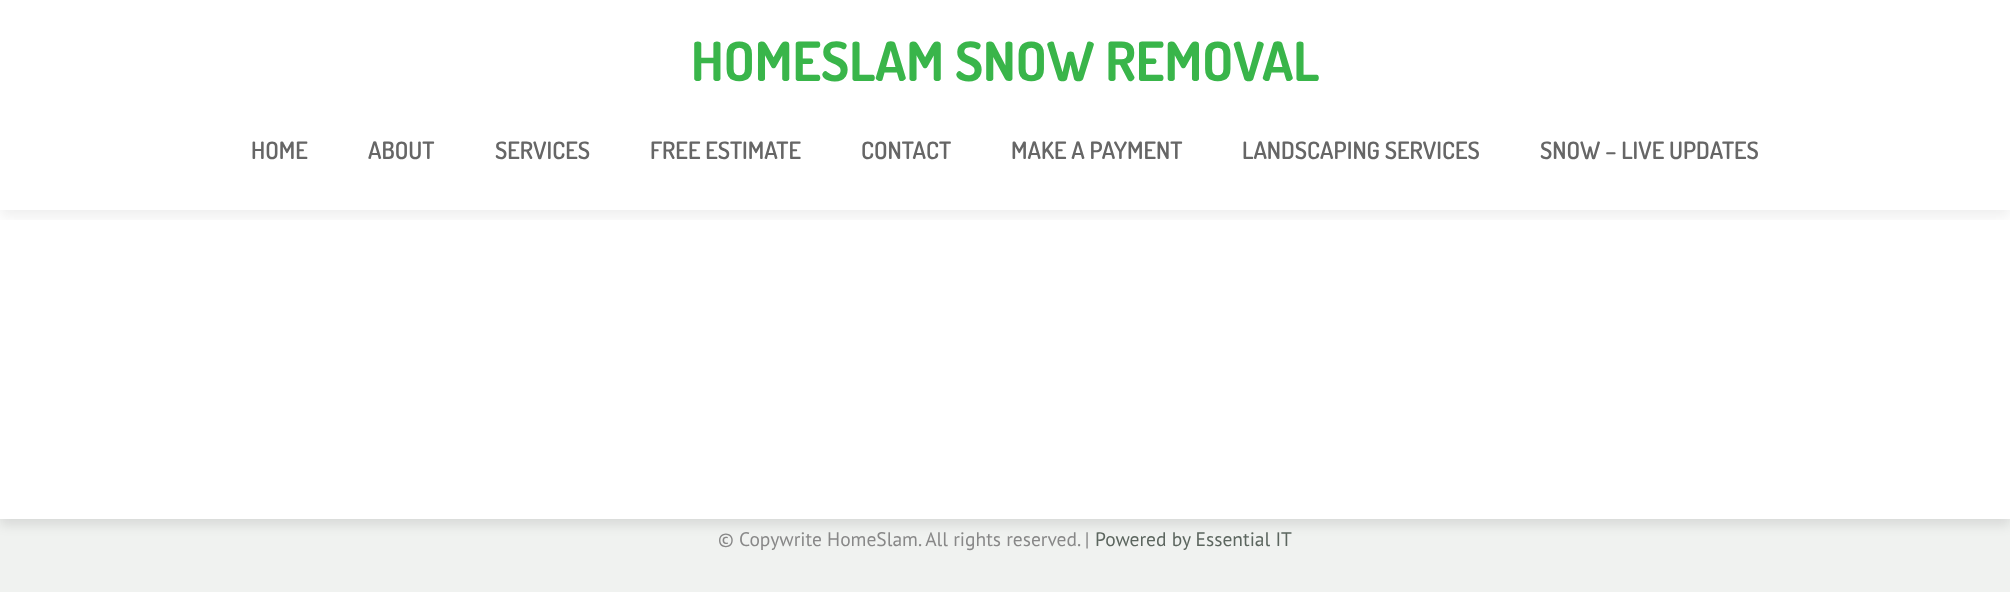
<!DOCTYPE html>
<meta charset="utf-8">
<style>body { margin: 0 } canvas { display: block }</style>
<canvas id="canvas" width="2010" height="592"></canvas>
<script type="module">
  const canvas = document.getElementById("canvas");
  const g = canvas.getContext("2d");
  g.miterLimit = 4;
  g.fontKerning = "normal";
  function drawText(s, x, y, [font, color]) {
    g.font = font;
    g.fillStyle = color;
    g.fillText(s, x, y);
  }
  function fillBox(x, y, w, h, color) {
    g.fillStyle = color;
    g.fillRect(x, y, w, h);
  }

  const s1 = ["bold 54px Dosis", "#39B54A"];
  const s2 = ["600 24px Dosis", "#666666"];
  const s3 = ["19.5px PT Sans", "#888888"];
  const s4 = ["19.5px PT Sans", "#5C665F"];

  fillBox(0, 0, 2010, 592, "#F0F2F0");
  g.fillStyle = "rgba(0, 0, 0, 0.1)";
  g.filter = "blur(6px)";
  g.beginPath();
  g.rect(0, 6, 2010, 519);
  g.fill();
  g.filter = "none";
  fillBox(0, 0, 2010, 519, "#FFFFFF");
  g.save();
  g.beginPath();
  g.rect(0, 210, 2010, 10);
  g.clip();
  g.fillStyle = "rgba(0, 0, 0, 0.07)";
  g.filter = "blur(7.5px)";
  g.beginPath();
  g.rect(0, 6, 2010, 210);
  g.fill();
  g.filter = "none";
  g.restore();
  drawText("HOMESLAM SNOW REMOVAL", 691, 81, s1);
  drawText("HOME", 251, 159, s2);
  drawText("ABOUT", 368, 159, s2);
  drawText("SERVICES", 495, 159, s2);
  drawText("FREE ESTIMATE", 650, 159, s2);
  drawText("CONTACT", 861, 159, s2);
  drawText("MAKE A PAYMENT", 1011, 159, s2);
  drawText("LANDSCAPING SERVICES", 1242, 159, s2);
  drawText("SNOW – LIVE UPDATES", 1540, 159, s2);
  drawText("© Copywrite HomeSlam. All rights reserved. |", 718, 546, s3);
  drawText("Powered by Essential IT", 1095, 546, s4);
</script>
